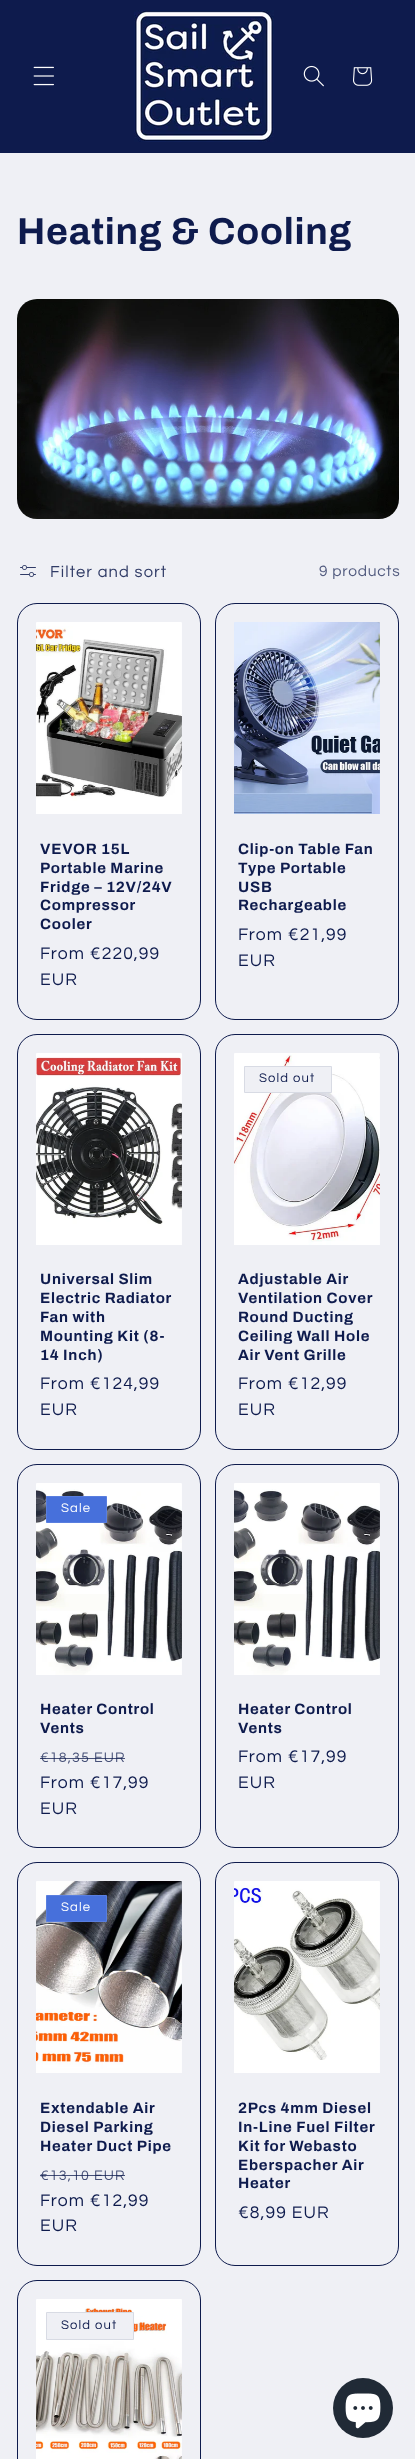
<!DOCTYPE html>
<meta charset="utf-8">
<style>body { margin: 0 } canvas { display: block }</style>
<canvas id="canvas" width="415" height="2459"></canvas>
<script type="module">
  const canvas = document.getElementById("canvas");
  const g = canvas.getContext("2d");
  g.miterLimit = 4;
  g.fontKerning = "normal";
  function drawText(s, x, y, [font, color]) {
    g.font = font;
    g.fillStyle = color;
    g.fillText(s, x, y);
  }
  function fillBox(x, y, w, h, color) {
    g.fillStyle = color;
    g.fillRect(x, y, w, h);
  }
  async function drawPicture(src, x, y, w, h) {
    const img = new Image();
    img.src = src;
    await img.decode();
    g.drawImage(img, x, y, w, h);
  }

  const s1 = ["bold 37.5px Archivo", "#0E1B4D"];
  const s2 = ["16.5px Questrial", "#303B66"];
  const s3 = ["15.5px Questrial", "#525B7F"];
  const s4 = ["bold 15px Archivo", "#0E1B4D"];
  const s5 = ["17.5px Questrial", "#0E1B4D"];
  const s6 = ["13px Questrial", "#0E1B4D"];
  const s7 = ["13px Questrial", "#FFFFFF"];
  const s8 = ["14.25px Questrial", "#465077"];

  fillBox(0, 0, 415, 2459, "#EFF0F5");
  fillBox(0, 0, 415, 153, "#0E1B4D");
  await drawPicture("pic1.png", 33, 66, 21, 20);
  await drawPicture("pic2.png", 134, 10, 140, 132);
  await drawPicture("pic3.png", 303, 65, 21, 22);
  await drawPicture("pic4.png", 353, 67, 20, 19);
  g.letterSpacing = "0.75px";
  drawText("Heating & Cooling", 17, 244, s1);
  await drawPicture("pic5.png", 17, 299, 382, 220);
  await drawPicture("pic6.png", 20, 565, 16, 12);
  g.letterSpacing = "1.1px";
  drawText("Filter and sort", 50, 577, s2);
  g.letterSpacing = "0.75px";
  drawText("9 products", 319, 576, s3);
  g.beginPath();
  g.roundRect(17.5, 603.5, 183, 416, 19.5);
  g.strokeStyle = "#0E1B4D";
  g.stroke();
  await drawPicture("pic7.png", 36, 622, 146, 192);
  drawText("VEVOR 15L", 40, 854, s4);
  drawText("Portable Marine", 40, 873, s4);
  drawText("Fridge – 12V/24V", 40, 892, s4);
  drawText("Compressor", 40, 910, s4);
  drawText("Cooler", 40, 929, s4);
  g.letterSpacing = "1.1px";
  drawText("From €220,99", 40, 959, s5);
  drawText("EUR", 40, 985, s5);
  g.beginPath();
  g.roundRect(215.5, 603.5, 183, 416, 19.5);
  g.stroke();
  await drawPicture("pic8.png", 234, 622, 146, 192);
  g.letterSpacing = "0.75px";
  drawText("Clip-on Table Fan", 238, 854, s4);
  drawText("Type Portable", 238, 873, s4);
  drawText("USB", 238, 892, s4);
  drawText("Rechargeable", 238, 910, s4);
  g.letterSpacing = "1.1px";
  drawText("From €21,99", 238, 940, s5);
  drawText("EUR", 238, 966, s5);
  g.beginPath();
  g.roundRect(17.5, 1034.5, 183, 415, 19.5);
  g.stroke();
  await drawPicture("pic9.png", 36, 1053, 146, 192);
  g.letterSpacing = "0.75px";
  drawText("Universal Slim", 40, 1284, s4);
  drawText("Electric Radiator", 40, 1303, s4);
  drawText("Fan with", 40, 1322, s4);
  drawText("Mounting Kit (8-", 40, 1341, s4);
  drawText("14 Inch)", 40, 1360, s4);
  g.letterSpacing = "1.1px";
  drawText("From €124,99", 40, 1389, s5);
  drawText("EUR", 40, 1415, s5);
  g.beginPath();
  g.roundRect(215.5, 1034.5, 183, 415, 19.5);
  g.stroke();
  await drawPicture("pic10.png", 234, 1053, 146, 192);
  g.fillStyle = "#EFF0F5";
  g.beginPath();
  g.rect(244.5, 1066.5, 87, 26);
  g.fill();
  g.strokeStyle = "#D8DBE4";
  g.stroke();
  drawText("Sold out", 259, 1082, s6);
  g.letterSpacing = "0.75px";
  drawText("Adjustable Air", 238, 1284, s4);
  drawText("Ventilation Cover", 238, 1303, s4);
  drawText("Round Ducting", 238, 1322, s4);
  drawText("Ceiling Wall Hole", 238, 1341, s4);
  drawText("Air Vent Grille", 238, 1360, s4);
  g.letterSpacing = "1.1px";
  drawText("From €12,99", 238, 1389, s5);
  drawText("EUR", 238, 1415, s5);
  g.beginPath();
  g.roundRect(17.5, 1464.5, 183, 383, 19.5);
  g.strokeStyle = "#0E1B4D";
  g.stroke();
  await drawPicture("pic11.png", 36, 1483, 146, 192);
  g.fillStyle = "#4770DB";
  g.beginPath();
  g.rect(46.5, 1496.5, 60, 26);
  g.fill();
  g.strokeStyle = "#597EDF";
  g.stroke();
  drawText("Sale", 61, 1512, s7);
  g.letterSpacing = "0.75px";
  drawText("Heater Control", 40, 1714, s4);
  drawText("Vents", 40, 1733, s4);
  g.letterSpacing = "1.1px";
  drawText("€18,35 EUR", 40, 1762, s8);
  fillBox(40, 1758, 85, 1, "rgba(14, 27, 77, 0.75)");
  drawText("From €17,99", 40, 1788, s5);
  drawText("EUR", 40, 1814, s5);
  g.beginPath();
  g.roundRect(215.5, 1464.5, 183, 383, 19.5);
  g.strokeStyle = "#0E1B4D";
  g.stroke();
  await drawPicture("pic12.png", 234, 1483, 146, 192);
  g.letterSpacing = "0.75px";
  drawText("Heater Control", 238, 1714, s4);
  drawText("Vents", 238, 1733, s4);
  g.letterSpacing = "1.1px";
  drawText("From €17,99", 238, 1762, s5);
  drawText("EUR", 238, 1788, s5);
  g.beginPath();
  g.roundRect(17.5, 1862.5, 183, 403, 19.5);
  g.stroke();
  await drawPicture("pic13.png", 36, 1881, 146, 192);
  g.fillStyle = "#4770DB";
  g.beginPath();
  g.rect(46.5, 1895.5, 60, 26);
  g.fill();
  g.strokeStyle = "#597EDF";
  g.stroke();
  drawText("Sale", 61, 1911, s7);
  g.letterSpacing = "0.75px";
  drawText("Extendable Air", 40, 2113, s4);
  drawText("Diesel Parking", 40, 2132, s4);
  drawText("Heater Duct Pipe", 40, 2151, s4);
  g.letterSpacing = "1.1px";
  drawText("€13,10 EUR", 40, 2180, s8);
  fillBox(40, 2175, 85, 1, "rgba(14, 27, 77, 0.75)");
  drawText("From €12,99", 40, 2206, s5);
  drawText("EUR", 40, 2231, s5);
  g.beginPath();
  g.roundRect(215.5, 1862.5, 183, 403, 19.5);
  g.strokeStyle = "#0E1B4D";
  g.stroke();
  await drawPicture("pic14.png", 234, 1881, 146, 192);
  g.letterSpacing = "0.75px";
  drawText("2Pcs 4mm Diesel", 238, 2113, s4);
  drawText("In-Line Fuel Filter", 238, 2132, s4);
  drawText("Kit for Webasto", 238, 2151, s4);
  drawText("Eberspacher Air", 238, 2170, s4);
  drawText("Heater", 238, 2188, s4);
  g.letterSpacing = "1.1px";
  drawText("€8,99 EUR", 238, 2218, s5);
  g.beginPath();
  g.roundRect(17.5, 2280.5, 183, 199, 19.5);
  g.stroke();
  await drawPicture("pic15.png", 36, 2299, 146, 160);
  g.fillStyle = "#EFF0F5";
  g.beginPath();
  g.rect(46.5, 2312.5, 87, 27);
  g.fill();
  g.strokeStyle = "#D8DBE4";
  g.stroke();
  drawText("Sold out", 61, 2329, s6);
  g.fillStyle = "#202A36";
  g.beginPath();
  g.arc(363, 2408, 30, 0, Math.PI * 2);
  g.fill();
  await drawPicture("pic16.png", 345, 2393, 36, 36);
</script>
